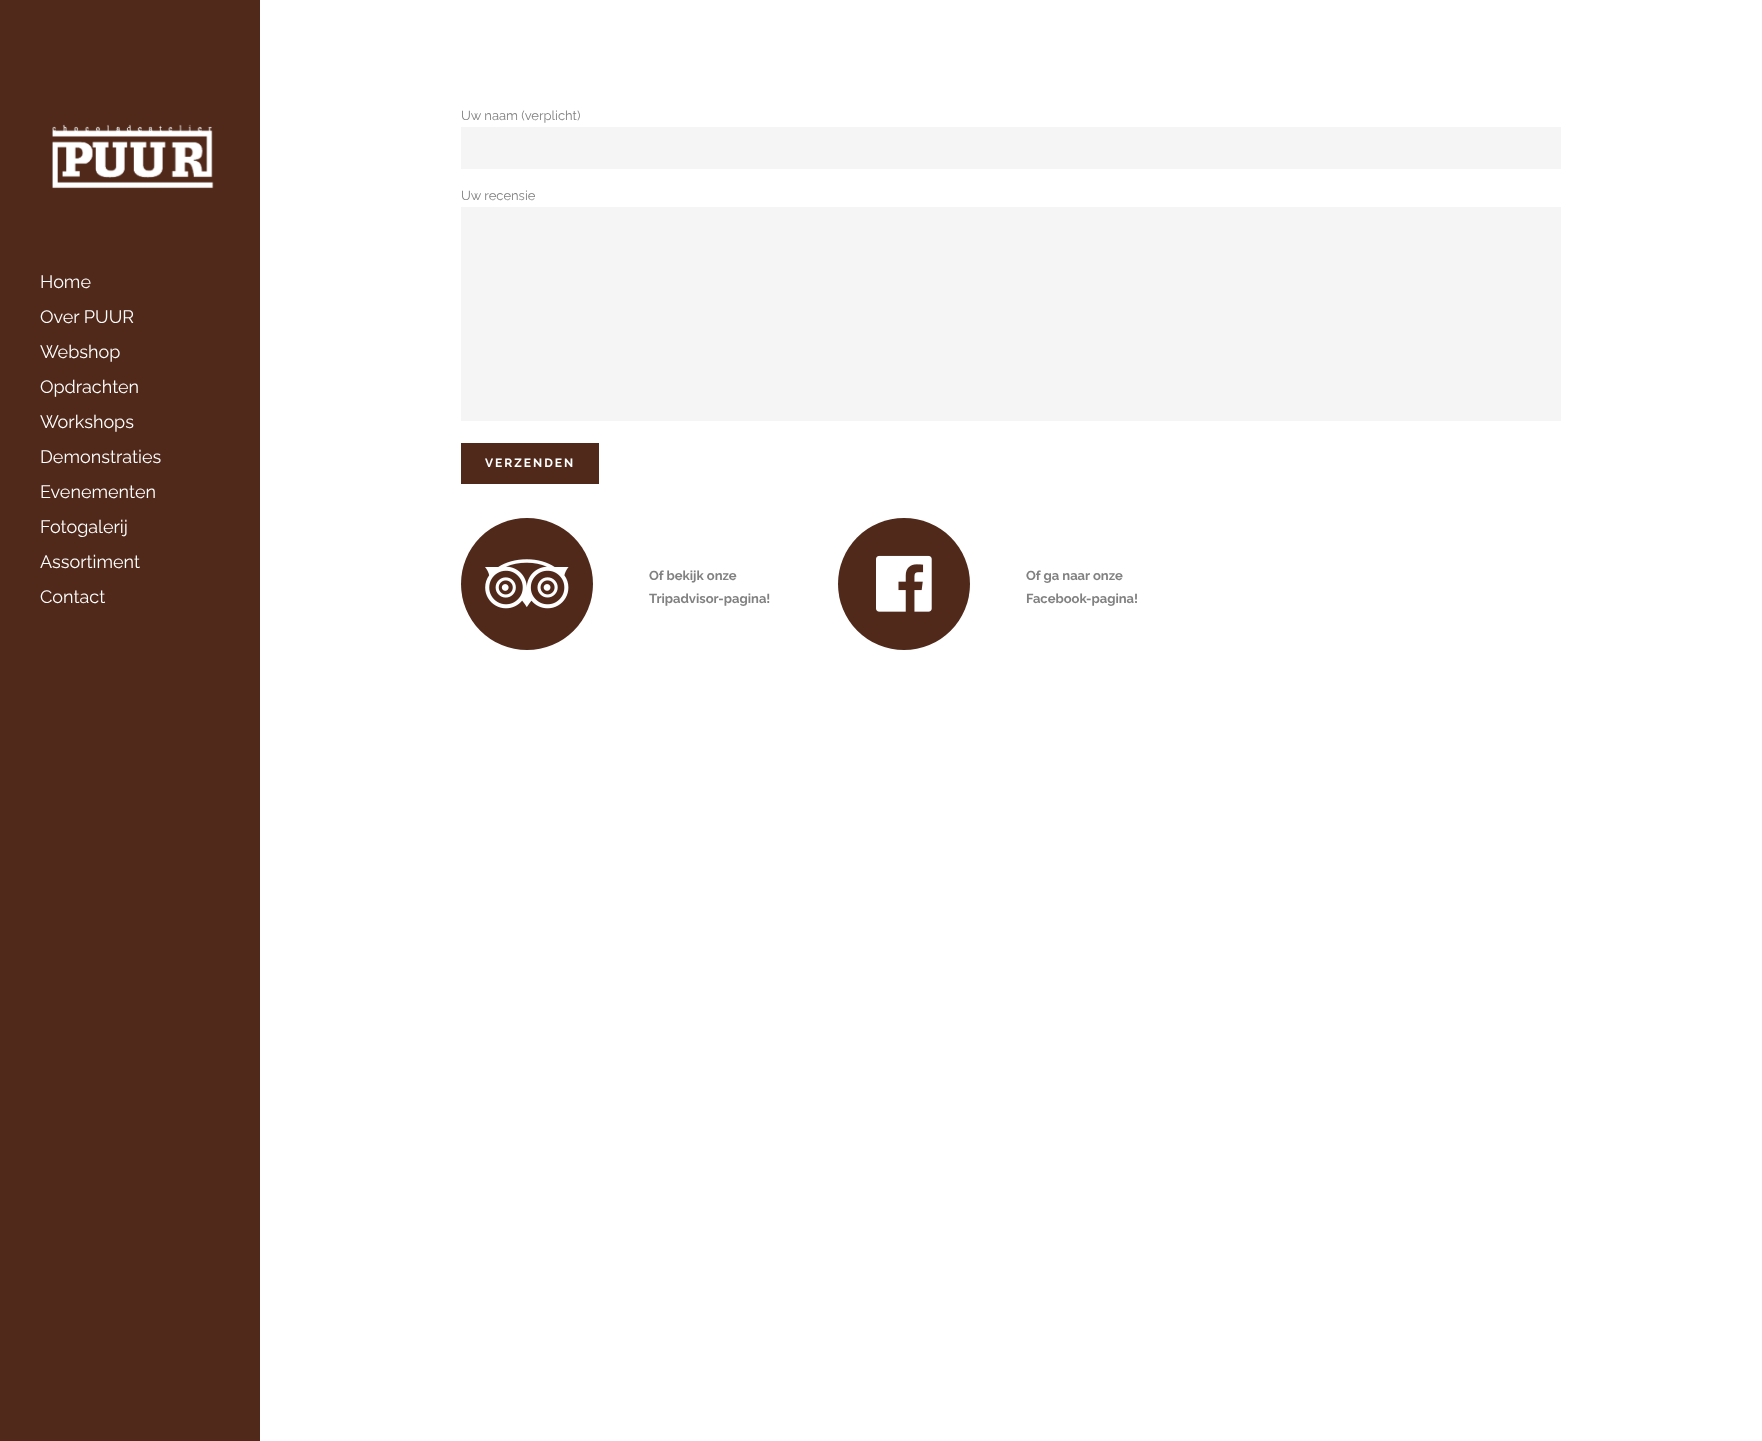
<!DOCTYPE html>
<meta charset="utf-8">
<style>body { margin: 0 } canvas { display: block }</style>
<canvas id="canvas" width="1762" height="1441"></canvas>
<script type="module">
  const canvas = document.getElementById("canvas");
  const g = canvas.getContext("2d");
  g.miterLimit = 4;
  g.fontKerning = "normal";
  function drawText(s, x, y, [font, color]) {
    g.font = font;
    g.fillStyle = color;
    g.fillText(s, x, y);
  }
  function fillBox(x, y, w, h, color) {
    g.fillStyle = color;
    g.fillRect(x, y, w, h);
  }
  async function drawPicture(src, x, y, w, h) {
    const img = new Image();
    img.src = src;
    await img.decode();
    g.drawImage(img, x, y, w, h);
  }

  const s1 = ["18px Raleway", "#FFFFFF"];
  const s2 = ["13px Raleway", "#818181"];
  const s3 = ["bold 12px Raleway", "#FFFFFF"];
  const s4 = ["bold 13px Raleway", "#818181"];

  fillBox(0, 0, 1762, 1441, "#FFFFFF");
  fillBox(0, 0, 260, 1441, "#50291A");
  await drawPicture("pic1.png", 52, 124, 162, 65);
  drawText("Home", 40, 288, s1);
  drawText("Over PUUR", 40, 323, s1);
  drawText("Webshop", 40, 358, s1);
  drawText("Opdrachten", 40, 393, s1);
  drawText("Workshops", 40, 428, s1);
  drawText("Demonstraties", 40, 463, s1);
  drawText("Evenementen", 40, 498, s1);
  drawText("Fotogalerij", 40, 533, s1);
  drawText("Assortiment", 40, 568, s1);
  drawText("Contact", 40, 603, s1);
  drawText("Uw naam (verplicht)", 461, 120, s2);
  fillBox(461, 127, 1100, 42, "#F5F5F5");
  drawText("Uw recensie", 461, 200, s2);
  fillBox(461, 207, 1100, 214, "#F5F5F5");
  fillBox(461, 443, 138, 41, "#50291A");
  g.letterSpacing = "2px";
  drawText("VERZENDEN", 485, 467, s3);
  g.fillStyle = "#50291A";
  g.beginPath();
  g.arc(527, 584, 66, 0, Math.PI * 2);
  g.fill();
  await drawPicture("pic2.png", 485, 559, 84, 50);
  g.letterSpacing = "0px";
  drawText("Of bekijk onze", 649, 580, s4);
  drawText("Tripadvisor-pagina!", 649, 603, s4);
  g.fillStyle = "#50291A";
  g.beginPath();
  g.arc(904, 584, 66, 0, Math.PI * 2);
  g.fill();
  await drawPicture("pic3.png", 876, 555, 56, 57);
  drawText("Of ga naar onze", 1026, 580, s4);
  drawText("Facebook-pagina!", 1026, 603, s4);
</script>
